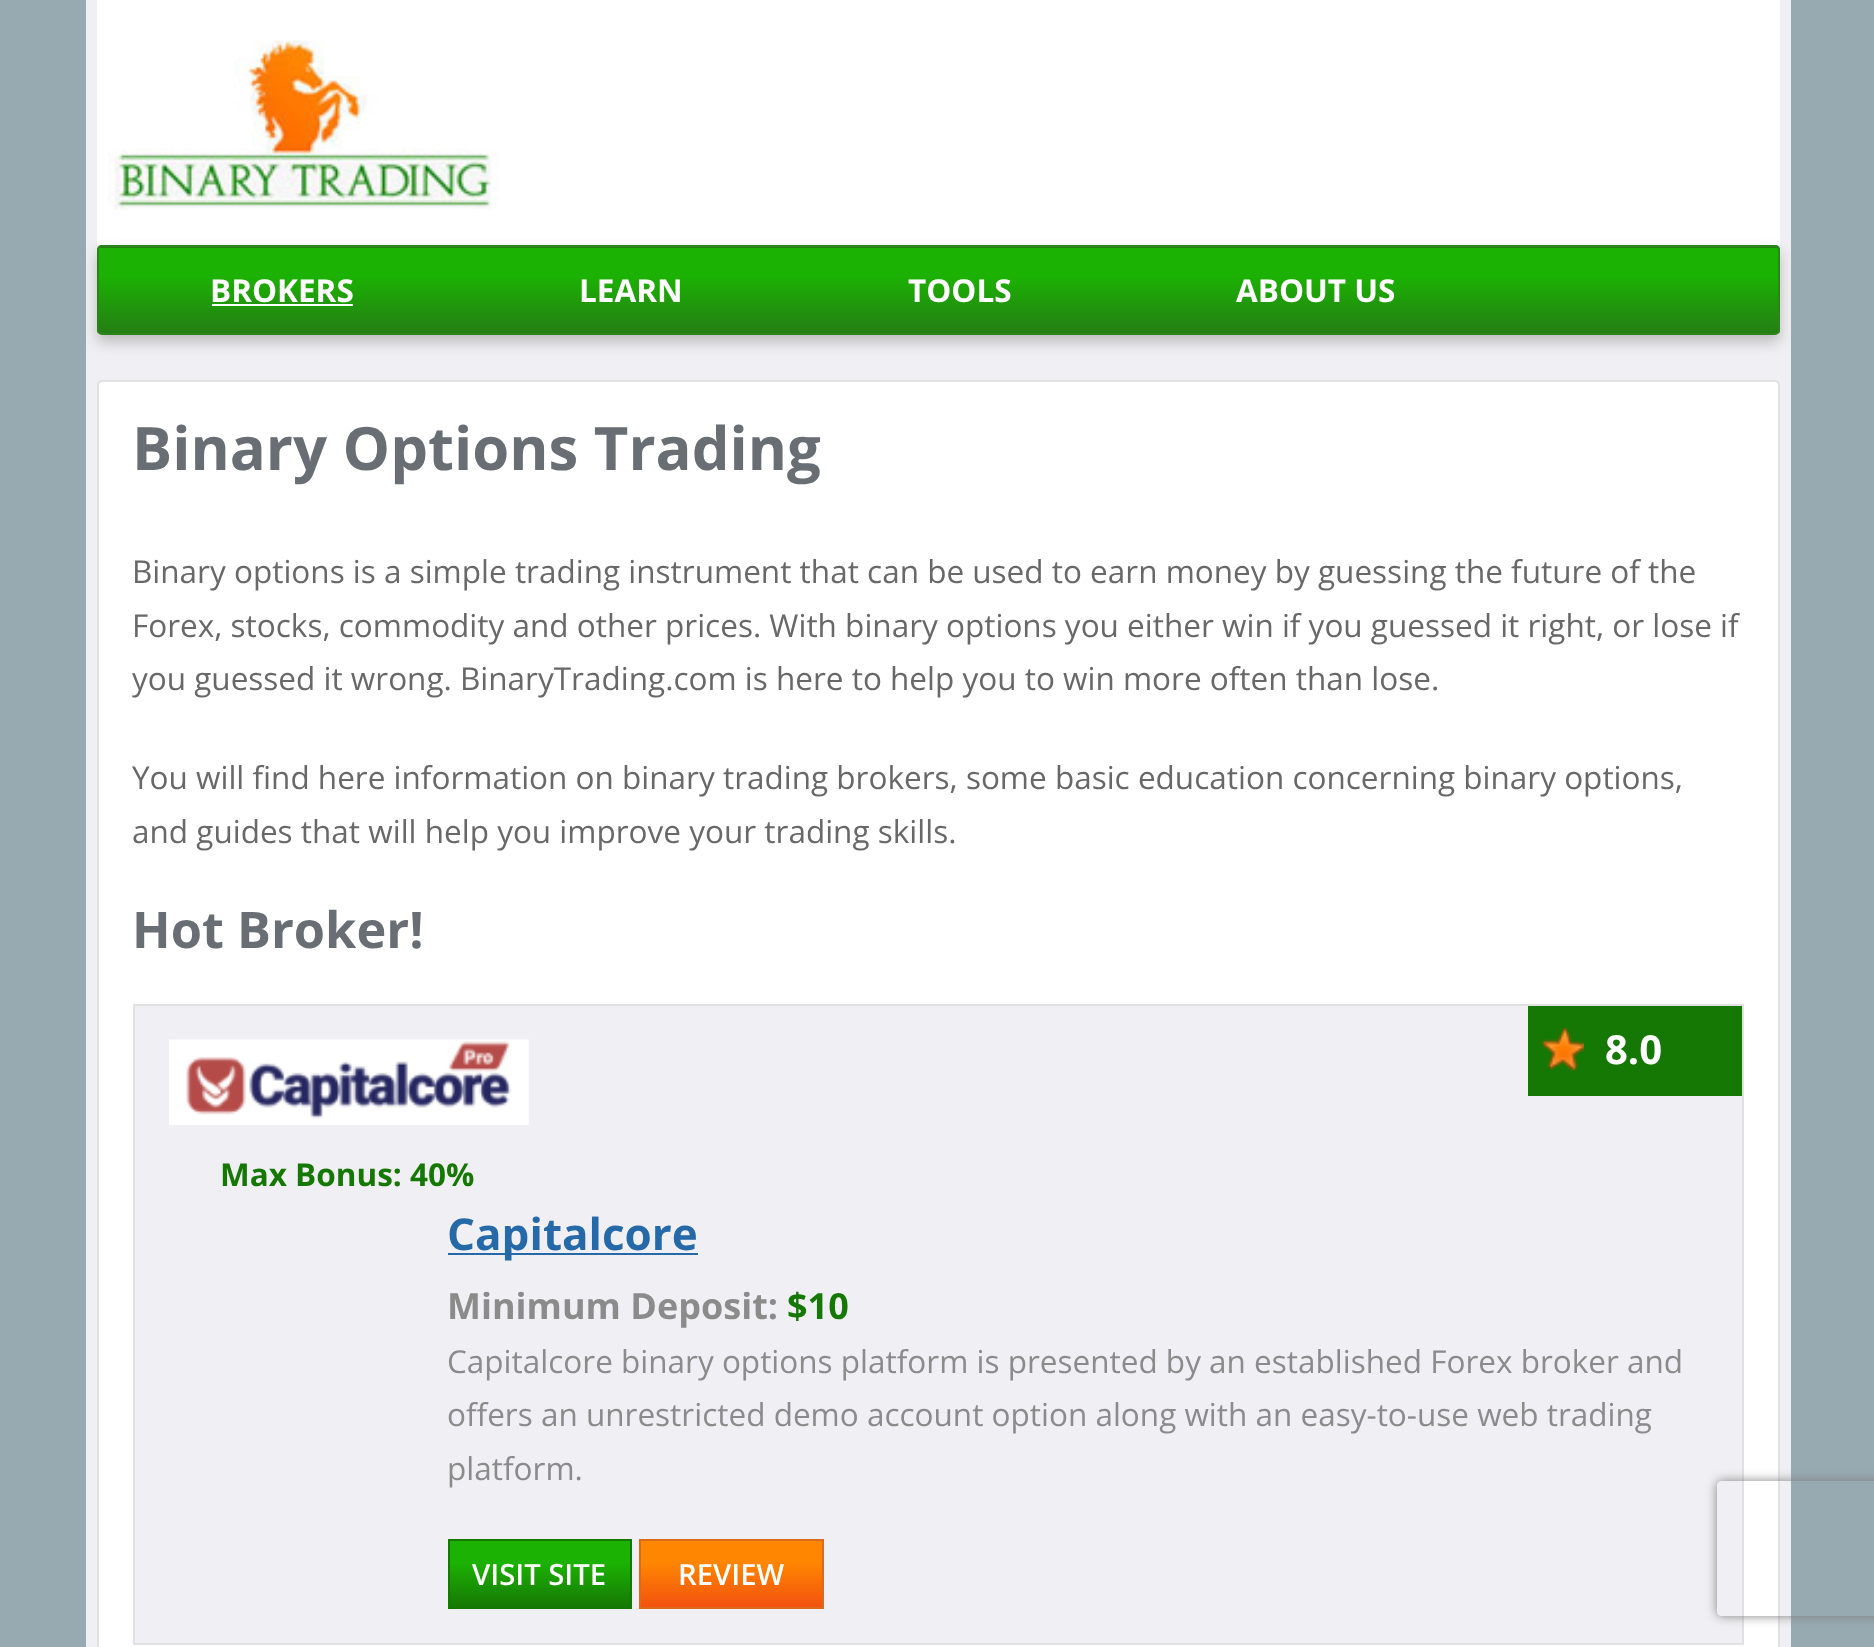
<!DOCTYPE html>
<meta charset="utf-8">
<style>body { margin: 0 } canvas { display: block }</style>
<canvas id="canvas" width="1874" height="1647"></canvas>
<script type="module">
  const canvas = document.getElementById("canvas");
  const g = canvas.getContext("2d");
  g.miterLimit = 4;
  g.fontKerning = "normal";
  function drawText(s, x, y, [font, color]) {
    g.font = font;
    g.fillStyle = color;
    g.fillText(s, x, y);
  }
  function fillBox(x, y, w, h, color) {
    g.fillStyle = color;
    g.fillRect(x, y, w, h);
  }
  async function drawPicture(src, x, y, w, h) {
    const img = new Image();
    img.src = src;
    await img.decode();
    g.drawImage(img, x, y, w, h);
  }
  let gradient;

  const s1 = ["bold 31.5px Open Sans", "#FFFFFF"];
  const s2 = ["bold 59.8px Open Sans", "#696D74"];
  const s3 = ["31.5px Open Sans", "#686868"];
  const s4 = ["bold 50.5px Open Sans", "#696D74"];
  const s5 = ["bold 40px Open Sans", "#FFFFFF"];
  const s6 = ["bold 31.5px Open Sans", "#167804"];
  const s7 = ["bold 44px Open Sans", "#2669A8"];
  const s8 = ["bold 36px Open Sans", "#8B8B8B"];
  const s9 = ["bold 36px Open Sans", "#167804"];
  const s10 = ["31.5px Open Sans", "#8B8B8B"];
  const s11 = ["600 29.25px Open Sans", "#FFFFFF"];

  fillBox(0, 0, 1874, 1647, "#97A9B1");
  fillBox(86, 0, 1705, 1647, "#F0F0F4");
  fillBox(97, 0, 1683, 245, "#FFFFFF");
  await drawPicture("pic1.png", 108, 40, 391, 170);
  g.fillStyle = "#BBBBBB";
  g.filter = "blur(7px)";
  g.beginPath();
  g.roundRect(97, 252, 1683, 90, 5);
  g.fill();
  g.filter = "none";
  g.save();
  g.beginPath();
  g.roundRect(97, 245, 1683, 90, 5);
  g.clip();
  gradient = g.createLinearGradient(938, 162, 938, 248);
  gradient.addColorStop(0.33, "#1CB203");
  gradient.addColorStop(1, "#247E14");
  g.fillStyle = gradient;
  g.fillRect(97, 245, 1683, 3);
  gradient = g.createLinearGradient(938, 247, 938, 333);
  gradient.addColorStop(0.33, "#1CB203");
  gradient.addColorStop(1, "#247E14");
  g.fillStyle = gradient;
  g.fillRect(97, 248, 1683, 85);
  g.restore();
  g.beginPath();
  g.roundRect(98, 246, 1681, 88, 4);
  g.strokeStyle = "#2B841B";
  g.lineWidth = 2;
  g.stroke();
  drawText("BROKERS", 210, 302, s1);
  fillBox(212, 304, 141, 2, "#FFFFFF");
  drawText("LEARN", 579, 302, s1);
  drawText("TOOLS", 908, 302, s1);
  drawText("ABOUT US", 1236, 302, s1);
  g.beginPath();
  g.roundRect(98, 381, 1681, 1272, 4);
  g.fill();
  g.strokeStyle = "#E2E0E0";
  g.stroke();
  drawText("Binary Options Trading", 132, 470, s2);
  drawText("Binary options is a simple trading instrument that can be used to earn money by guessing the future of the", 132, 583, s3);
  drawText("Forex, stocks, commodity and other prices. With binary options you either win if you guessed it right, or lose if", 132, 637, s3);
  drawText("you guessed it wrong. BinaryTrading.com is here to help you to win more often than lose.", 132, 690, s3);
  drawText("You will find here information on binary trading brokers, some basic education concerning binary options,", 132, 789, s3);
  drawText("and guides that will help you improve your trading skills.", 132, 843, s3);
  drawText("Hot Broker!", 132, 948, s4);
  g.fillStyle = "#F0F0F4";
  g.beginPath();
  g.rect(134, 1005, 1609, 639);
  g.fill();
  g.stroke();
  fillBox(1528, 1006, 214, 90, "#167804");
  await drawPicture("pic2.png", 1541, 1028, 43, 43);
  drawText("8.0", 1605, 1064, s5);
  await drawPicture("pic3.png", 169, 1039, 360, 86);
  drawText("Max Bonus: 40%", 220, 1186, s6);
  fillBox(448, 1253, 250, 2, "#2669A8");
  drawText("Capitalcore", 447, 1250, s7);
  drawText("Minimum Deposit:", 447, 1319, s8);
  drawText("$10", 787, 1319, s9);
  drawText("Capitalcore binary options platform is presented by an established Forex broker and", 447, 1373, s10);
  drawText("offers an unrestricted demo account option along with an easy-to-use web trading", 447, 1426, s10);
  drawText("platform.", 447, 1480, s10);
  gradient = g.createLinearGradient(540, 1541, 540, 1607);
  gradient.addColorStop(0.33, "#1CB203");
  gradient.addColorStop(1, "#167804");
  g.fillStyle = gradient;
  g.fillRect(450, 1541, 180, 66);
  g.strokeStyle = "#167804";
  g.strokeRect(449, 1540, 182, 68);
  drawText("VISIT SITE", 472, 1585, s11);
  gradient = g.createLinearGradient(731, 1541, 731, 1607);
  gradient.addColorStop(0.33, "#FF8601");
  gradient.addColorStop(1, "#F2520F");
  g.fillStyle = gradient;
  g.fillRect(641, 1541, 181, 66);
  g.strokeStyle = "#DB6B19";
  g.strokeRect(640, 1540, 183, 68);
  drawText("REVIEW", 678, 1585, s11);
  g.save();
  g.beginPath();
  g.moveTo(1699, 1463);
  g.lineTo(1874, 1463);
  g.lineTo(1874, 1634);
  g.lineTo(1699, 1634);
  g.closePath();
  g.moveTo(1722, 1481);
  g.lineTo(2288, 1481);
  g.bezierCurveTo(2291, 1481, 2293, 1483, 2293, 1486);
  g.lineTo(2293, 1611);
  g.bezierCurveTo(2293, 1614, 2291, 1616, 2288, 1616);
  g.lineTo(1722, 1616);
  g.bezierCurveTo(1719, 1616, 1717, 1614, 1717, 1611);
  g.lineTo(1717, 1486);
  g.bezierCurveTo(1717, 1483, 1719, 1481, 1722, 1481);
  g.closePath();
  g.clip("evenodd");
  g.fillStyle = "#808080";
  g.filter = "blur(5.5px)";
  g.beginPath();
  g.roundRect(1717, 1481, 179, 135, 5);
  g.fill();
  g.filter = "none";
  g.restore();
</script>
